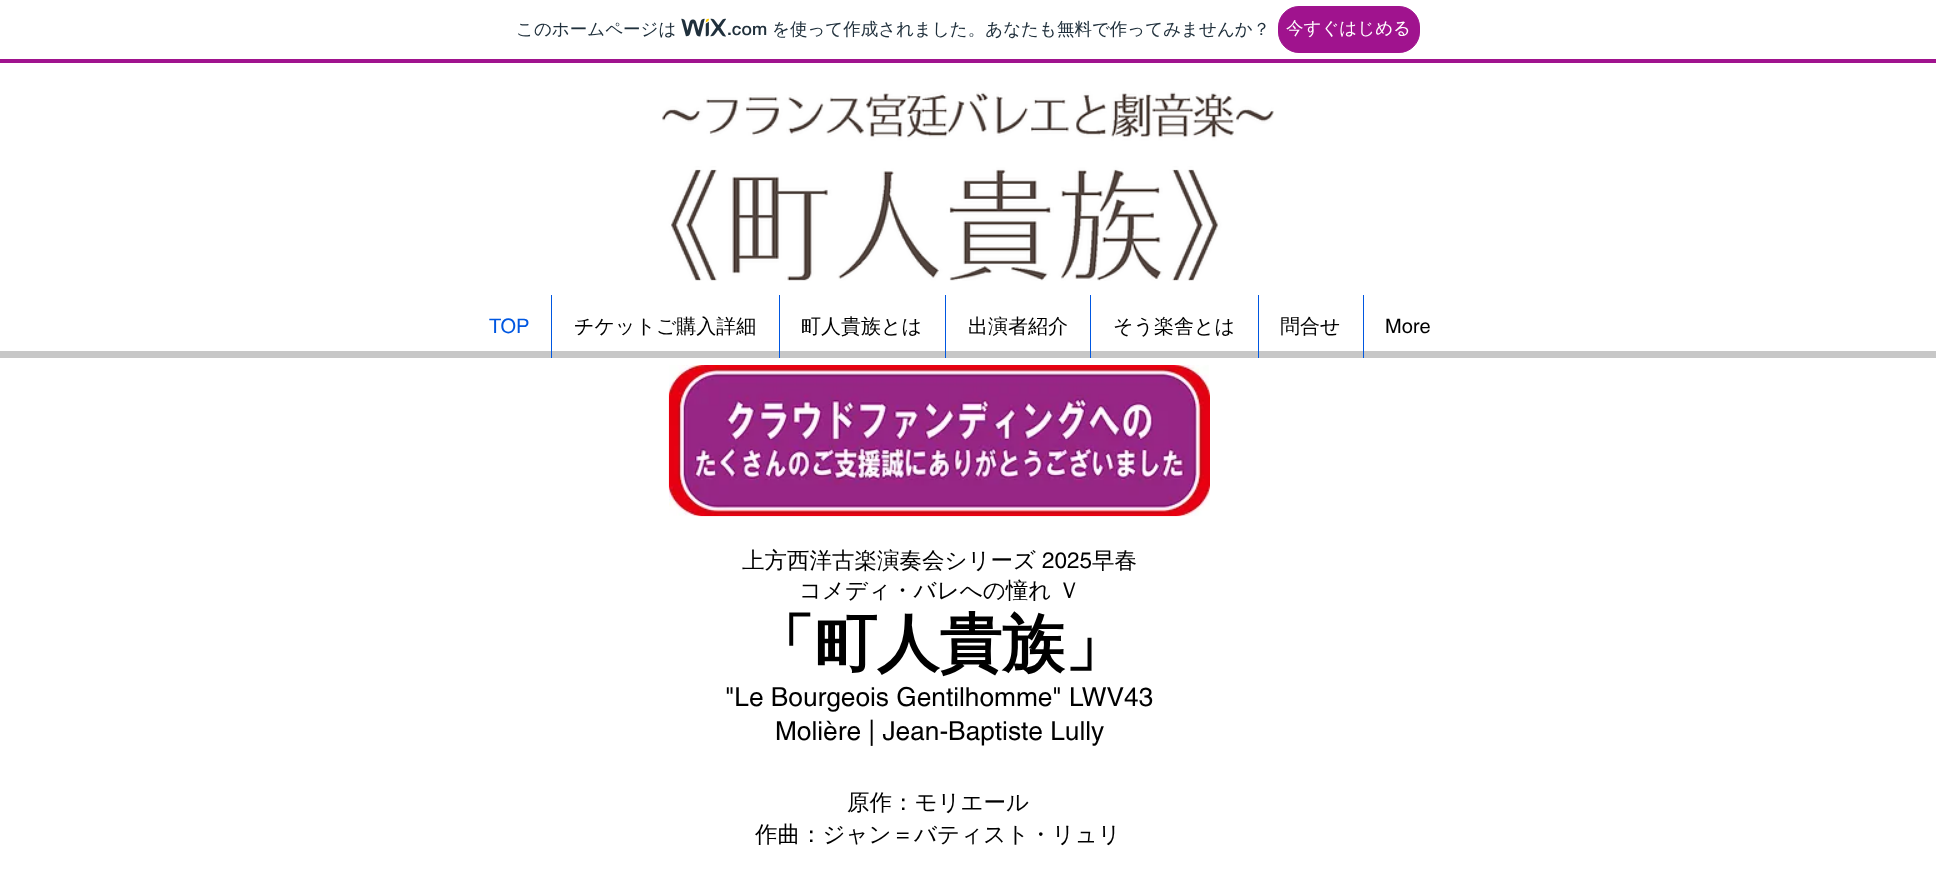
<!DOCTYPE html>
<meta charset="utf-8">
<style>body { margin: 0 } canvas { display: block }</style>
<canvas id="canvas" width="1936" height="877"></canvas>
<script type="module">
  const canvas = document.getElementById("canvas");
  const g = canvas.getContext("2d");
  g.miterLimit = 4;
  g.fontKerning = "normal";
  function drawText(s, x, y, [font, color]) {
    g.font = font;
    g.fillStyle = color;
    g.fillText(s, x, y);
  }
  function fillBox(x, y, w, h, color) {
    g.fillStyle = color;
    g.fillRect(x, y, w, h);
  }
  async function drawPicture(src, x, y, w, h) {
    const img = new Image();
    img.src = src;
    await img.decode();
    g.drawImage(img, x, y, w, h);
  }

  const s1 = ["500 17.5px WenQuanYi Zen Hei", "#20303C"];
  const s2 = ["500 17.5px 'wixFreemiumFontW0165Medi'", "#20303C"];
  const s3 = ["500 17.5px WenQuanYi Zen Hei", "#FFFFFF"];
  const s4 = ["20px helvetica", "#0057E1"];
  const s5 = ["500 20px WenQuanYi Zen Hei", "#000000"];
  const s6 = ["20px helvetica", "#000000"];
  const s7 = ["500 22.5px WenQuanYi Zen Hei", "#000000"];
  const s8 = ["22.5px helvetica", "#000000"];
  const s9 = ["bold 62.5px WenQuanYi Zen Hei", "#000000"];
  const s10 = ["26.25px helvetica", "#000000"];

  fillBox(0, 0, 1936, 877, "#FFFFFF");
  fillBox(0, 59, 1936, 4, "#A0138E");
  drawText("このホームページは", 516, 35, s1);
  await drawPicture("pic1.png", 681, 18, 45, 19);
  drawText(".com", 727, 35, s2);
  drawText("を使って作成されました。あなたも無料で作ってみませんか？", 772, 35, s1);
  g.fillStyle = "#A0138E";
  g.beginPath();
  g.roundRect(1278.5, 6.5, 141, 46, 20.5);
  g.fill();
  g.strokeStyle = "#A0138E";
  g.stroke();
  drawText("今すぐはじめる", 1286, 34, s3);
  await drawPicture("pic2.png", 662, 90, 612, 191);
  drawText("TOP", 489, 333, s4);
  fillBox(0, 351, 1936, 7, "#C7C7C7");
  fillBox(551, 295, 1, 63, "#0057E1");
  drawText("チケットご購入詳細", 574, 333, s5);
  fillBox(779, 295, 1, 63, "#0057E1");
  drawText("町人貴族とは", 801, 333, s5);
  fillBox(945, 295, 1, 63, "#0057E1");
  drawText("出演者紹介", 968, 333, s5);
  fillBox(1090, 295, 1, 63, "#0057E1");
  drawText("そう楽舎とは", 1113, 333, s5);
  fillBox(1258, 295, 1, 63, "#0057E1");
  drawText("問合せ", 1280, 333, s5);
  fillBox(1363, 295, 1, 63, "#0057E1");
  drawText("More", 1385, 333, s6);
  await drawPicture("pic3.png", 668, 365, 542, 152);
  drawText("上方西洋古楽演奏会シリーズ", 742, 568, s7);
  drawText("2025", 1042, 568, s8);
  drawText("早春", 1092, 568, s7);
  drawText("コメディ・バレへの憧れ Ｖ", 799, 598, s7);
  drawText("「町人貴族」", 752, 665, s9);
  drawText("\"Le Bourgeois Gentilhomme\" LWV43", 725, 706, s10);
  drawText("Molière | Jean-Baptiste Lully", 775, 740, s10);
  drawText("原作：モリエール", 847, 810, s7);
  drawText("作曲：ジャン＝バティスト・リュリ", 755, 842, s7);
</script>
